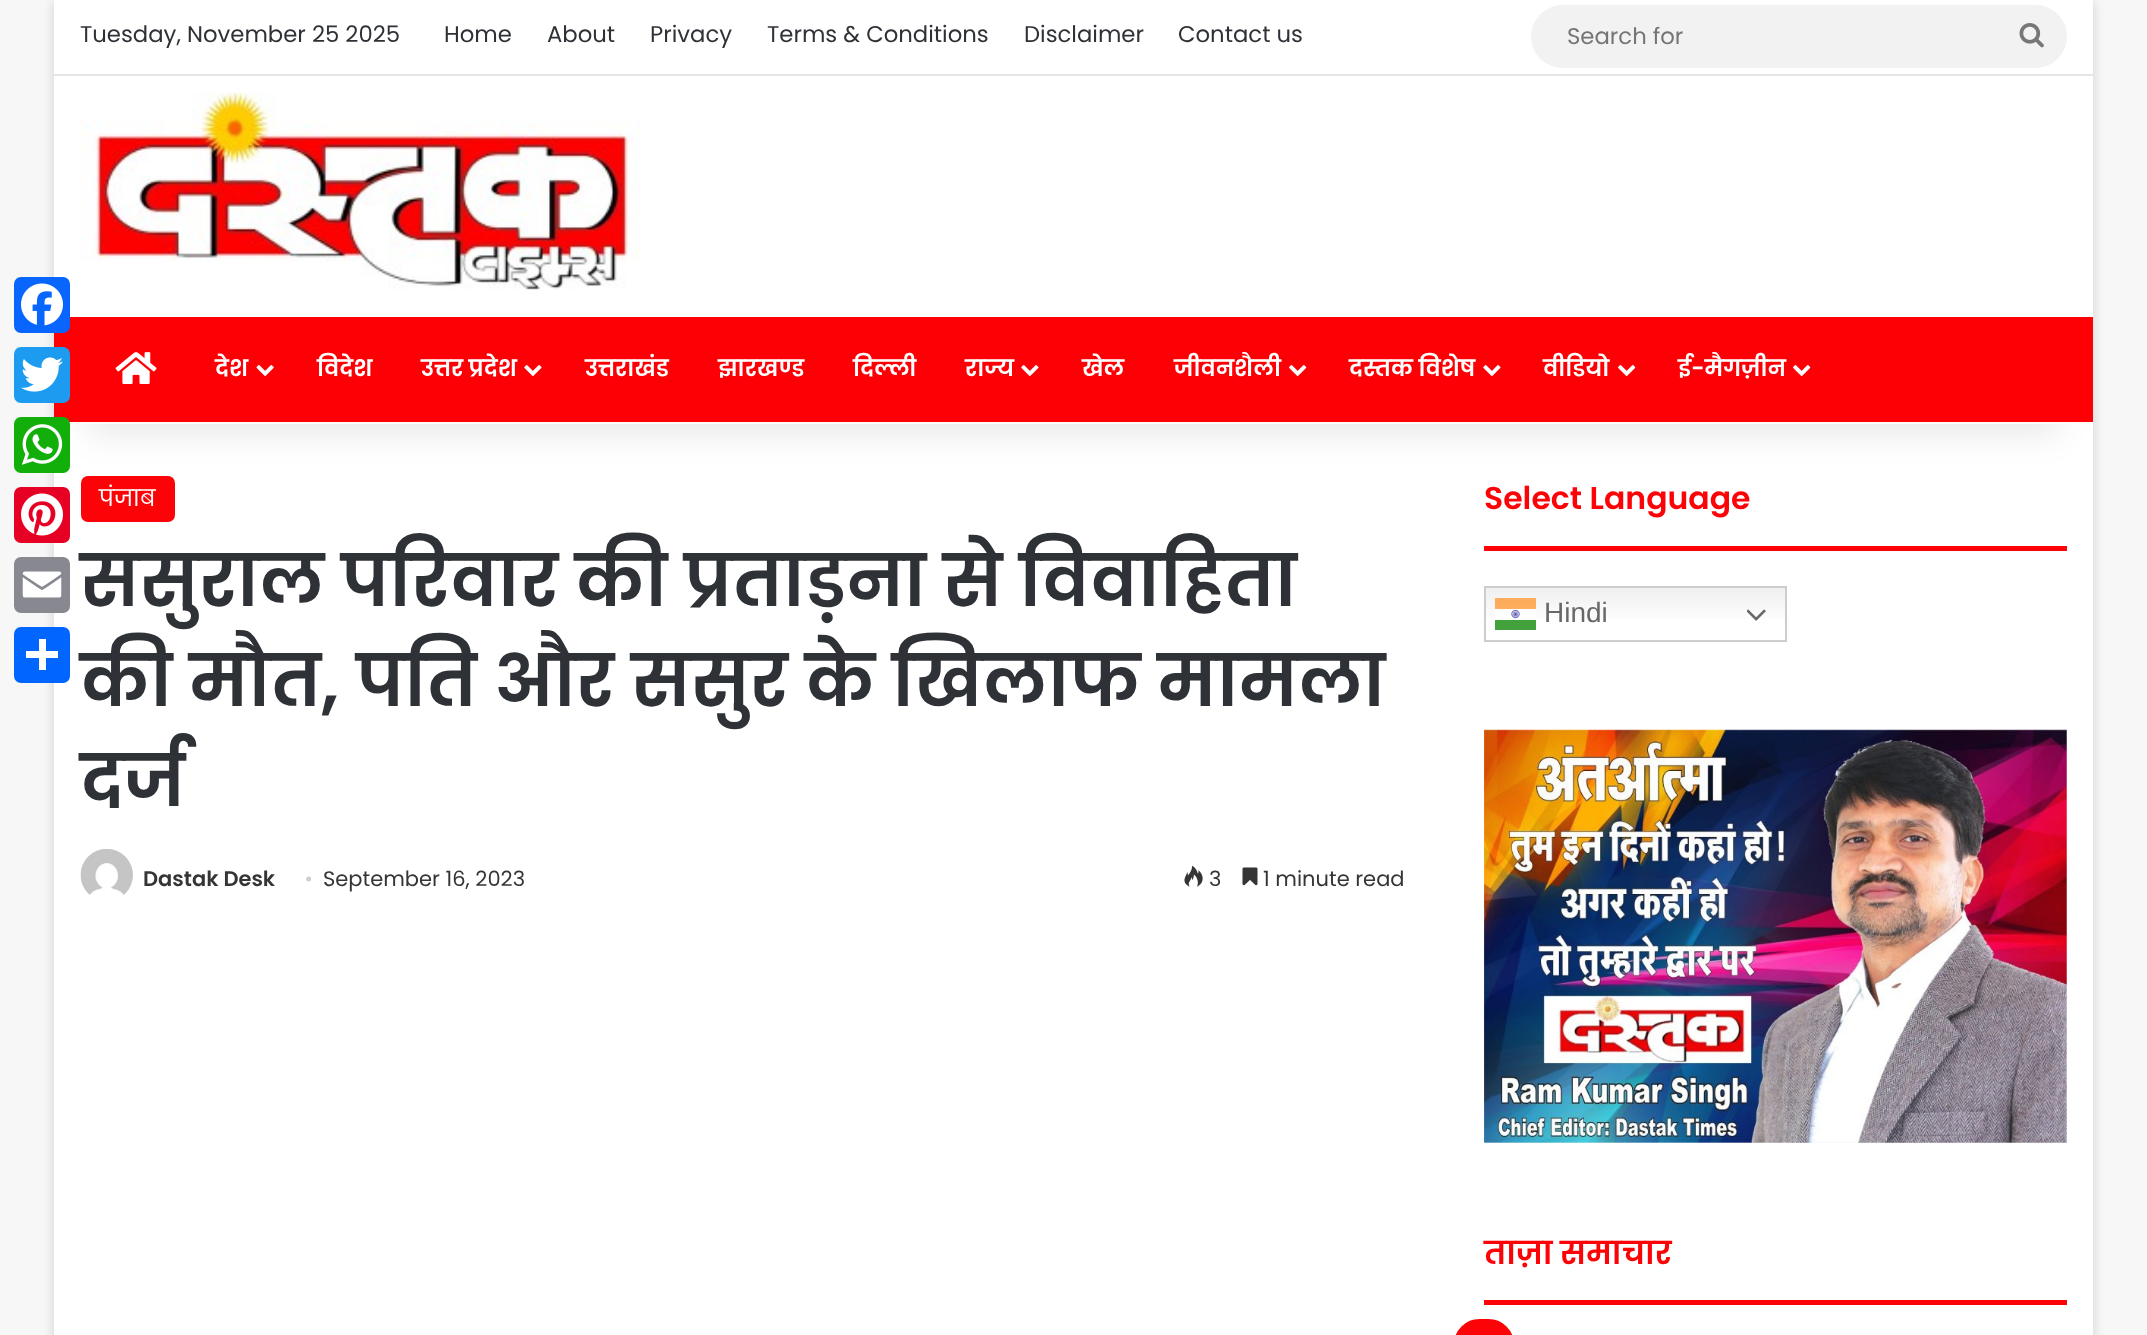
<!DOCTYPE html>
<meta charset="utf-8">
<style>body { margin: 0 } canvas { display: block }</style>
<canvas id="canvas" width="2147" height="1335"></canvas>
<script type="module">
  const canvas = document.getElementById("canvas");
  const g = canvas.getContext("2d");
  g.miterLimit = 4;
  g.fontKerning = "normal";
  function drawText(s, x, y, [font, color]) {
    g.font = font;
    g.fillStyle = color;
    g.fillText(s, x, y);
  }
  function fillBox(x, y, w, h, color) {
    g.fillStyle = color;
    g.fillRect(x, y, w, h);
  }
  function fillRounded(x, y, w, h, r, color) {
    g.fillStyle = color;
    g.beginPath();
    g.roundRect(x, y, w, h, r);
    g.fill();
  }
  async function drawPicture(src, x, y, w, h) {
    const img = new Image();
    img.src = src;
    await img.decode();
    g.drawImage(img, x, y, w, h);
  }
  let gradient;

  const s1 = ["600 71.75px Poppins", "#2E3136"];
  const s2 = ["22.75px Poppins", "#2E3136"];
  const s3 = ["22.75px Poppins", "#757575"];
  const s4 = ["600 22.75px Poppins", "#FFFFFF"];
  const s5 = ["22.75px Poppins", "#FFFFFF"];
  const s6 = ["600 21px Poppins", "#353535"];
  const s7 = ["21px Liberation Serif", "#CDCDCD"];
  const s8 = ["21px Poppins", "#353535"];
  const s9 = ["600 31.5px Poppins", "#FC0308"];
  const s10 = ["28px Liberation Sans", "#686868"];

  fillBox(0, 0, 2147, 1335, "#F7F7F7");
  g.fillStyle = "rgba(171, 171, 171, 0.5)";
  g.filter = "blur(6px)";
  g.beginPath();
  g.rect(54, 2, 2039, 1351);
  g.fill();
  g.filter = "none";
  fillBox(54, 424, 2039, 911, "#FFFFFF");
  fillRounded(81, 476, 94, 46, 7, "#FC0308");
  g.fillStyle = "rgba(0, 0, 0, 0.1)";
  g.filter = "blur(17.5px)";
  g.beginPath();
  g.rect(89, 79, 1969, 353);
  g.fill();
  g.filter = "none";
  fillBox(54, 0, 2039, 317, "#FFFFFF");
  fillBox(54, 317, 2039, 105, "#FC0005");
  fillRounded(14, 277, 56, 56, 7, "#0866FF");
  await drawPicture("pic1.png", 21, 283, 42, 43);
  fillRounded(14, 347, 56, 56, 7, "#1D9BF0");
  await drawPicture("pic2.png", 21, 357, 42, 35);
  fillBox(69, 422, 2024, 2, "#FCFCFC");
  fillRounded(14, 417, 56, 56, 7, "#12AF0A");
  await drawPicture("pic3.png", 22, 424, 41, 41);
  fillRounded(14, 487, 56, 56, 7, "#E60023");
  await drawPicture("pic4.png", 21, 493, 42, 43);
  fillRounded(14, 557, 56, 56, 7, "#888990");
  await drawPicture("pic5.png", 22, 571, 40, 27);
  drawText("की मौत, पति और ससुर के खिलाफ मामला", 80, 706, s1);
  fillRounded(14, 627, 56, 56, 7, "#0166FF");
  fillBox(39, 639, 7, 31, "#FFFFFF");
  fillBox(26, 651, 32, 7, "#FFFFFF");
  fillBox(54, 74, 2039, 2, "#E6E6E6");
  drawText("Tuesday, November 25 2025", 80, 42, s2);
  drawText("Home", 444, 42, s2);
  drawText("About", 547, 42, s2);
  drawText("Privacy", 650, 42, s2);
  drawText("Terms & Conditions", 767, 42, s2);
  drawText("Disclaimer", 1024, 42, s2);
  drawText("Contact us", 1178, 42, s2);
  fillRounded(1531, 5, 536, 63, 31.5, "#F2F2F2");
  drawText("Search for", 1567, 44, s3);
  await drawPicture("pic6.png", 2019, 23, 25, 25);
  await drawPicture("pic7.png", 80, 92, 561, 198);
  await drawPicture("pic8.png", 115, 352, 42, 32);
  drawText("देश", 215, 376, s4);
  await drawPicture("pic9.png", 256, 365, 18, 11);
  drawText("विदेश", 317, 376, s4);
  drawText("उत्तर प्रदेश", 421, 376, s4);
  await drawPicture("pic10.png", 524, 365, 18, 11);
  drawText("उत्तराखंड", 585, 376, s4);
  drawText("झारखण्ड", 718, 376, s4);
  drawText("दिल्ली", 853, 376, s4);
  drawText("राज्य", 965, 376, s4);
  await drawPicture("pic10.png", 1021, 365, 18, 11);
  drawText("खेल", 1082, 376, s4);
  drawText("जीवनशैली", 1174, 376, s4);
  await drawPicture("pic11.png", 1289, 365, 18, 11);
  drawText("दस्तक विशेष", 1349, 376, s4);
  await drawPicture("pic10.png", 1483, 365, 18, 11);
  drawText("वीडियो", 1543, 376, s4);
  await drawPicture("pic11.png", 1618, 365, 18, 11);
  drawText("ई-मैगज़ीन", 1678, 376, s4);
  await drawPicture("pic11.png", 1793, 365, 18, 11);
  drawText("पंजाब", 99, 506, s5);
  drawText("ससुराल परिवार की प्रताड़ना से विवाहिता", 80, 606, s1);
  drawText("दर्ज", 80, 806, s1);
  await drawPicture("pic12.png", 80, 849, 53, 46);
  drawText("Dastak Desk", 143, 886, s6);
  drawText("•", 305, 886, s7);
  drawText("September 16, 2023", 323, 886, s8);
  await drawPicture("pic13.png", 1184, 865, 19, 22);
  drawText("3", 1209, 886, s8);
  await drawPicture("pic14.png", 1242, 867, 16, 19);
  drawText("1 minute read", 1263, 886, s8);
  fillBox(1484, 546, 583, 5, "#FC0308");
  drawText("Select Language", 1484, 509, s9);
  gradient = g.createLinearGradient(1635, 586, 1635, 642);
  gradient.addColorStop(0, "#EFEFEF");
  gradient.addColorStop(0.7, "#FFFFFF");
  g.fillStyle = gradient;
  g.fillRect(1486, 588, 299, 31);
  g.strokeStyle = "#CDCDCD";
  g.lineWidth = 2;
  g.strokeRect(1485, 587, 301, 54);
  await drawPicture("pic15.png", 1495, 598, 41, 32);
  drawText("Hindi", 1544, 622, s10);
  await drawPicture("pic16.png", 1747, 609, 19, 12);
  await drawPicture("pic17.png", 1484, 729, 583, 414);
  fillBox(1484, 1300, 583, 5, "#FC0308");
  drawText("ताज़ा समाचार", 1484, 1264, s9);
  g.beginPath();
  g.roundRect(1451.5, 1316.5, 65, 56, 32.5);
  g.fill();
  g.strokeStyle = "#FFFFFF";
  g.lineWidth = 5;
  g.stroke();
</script>
